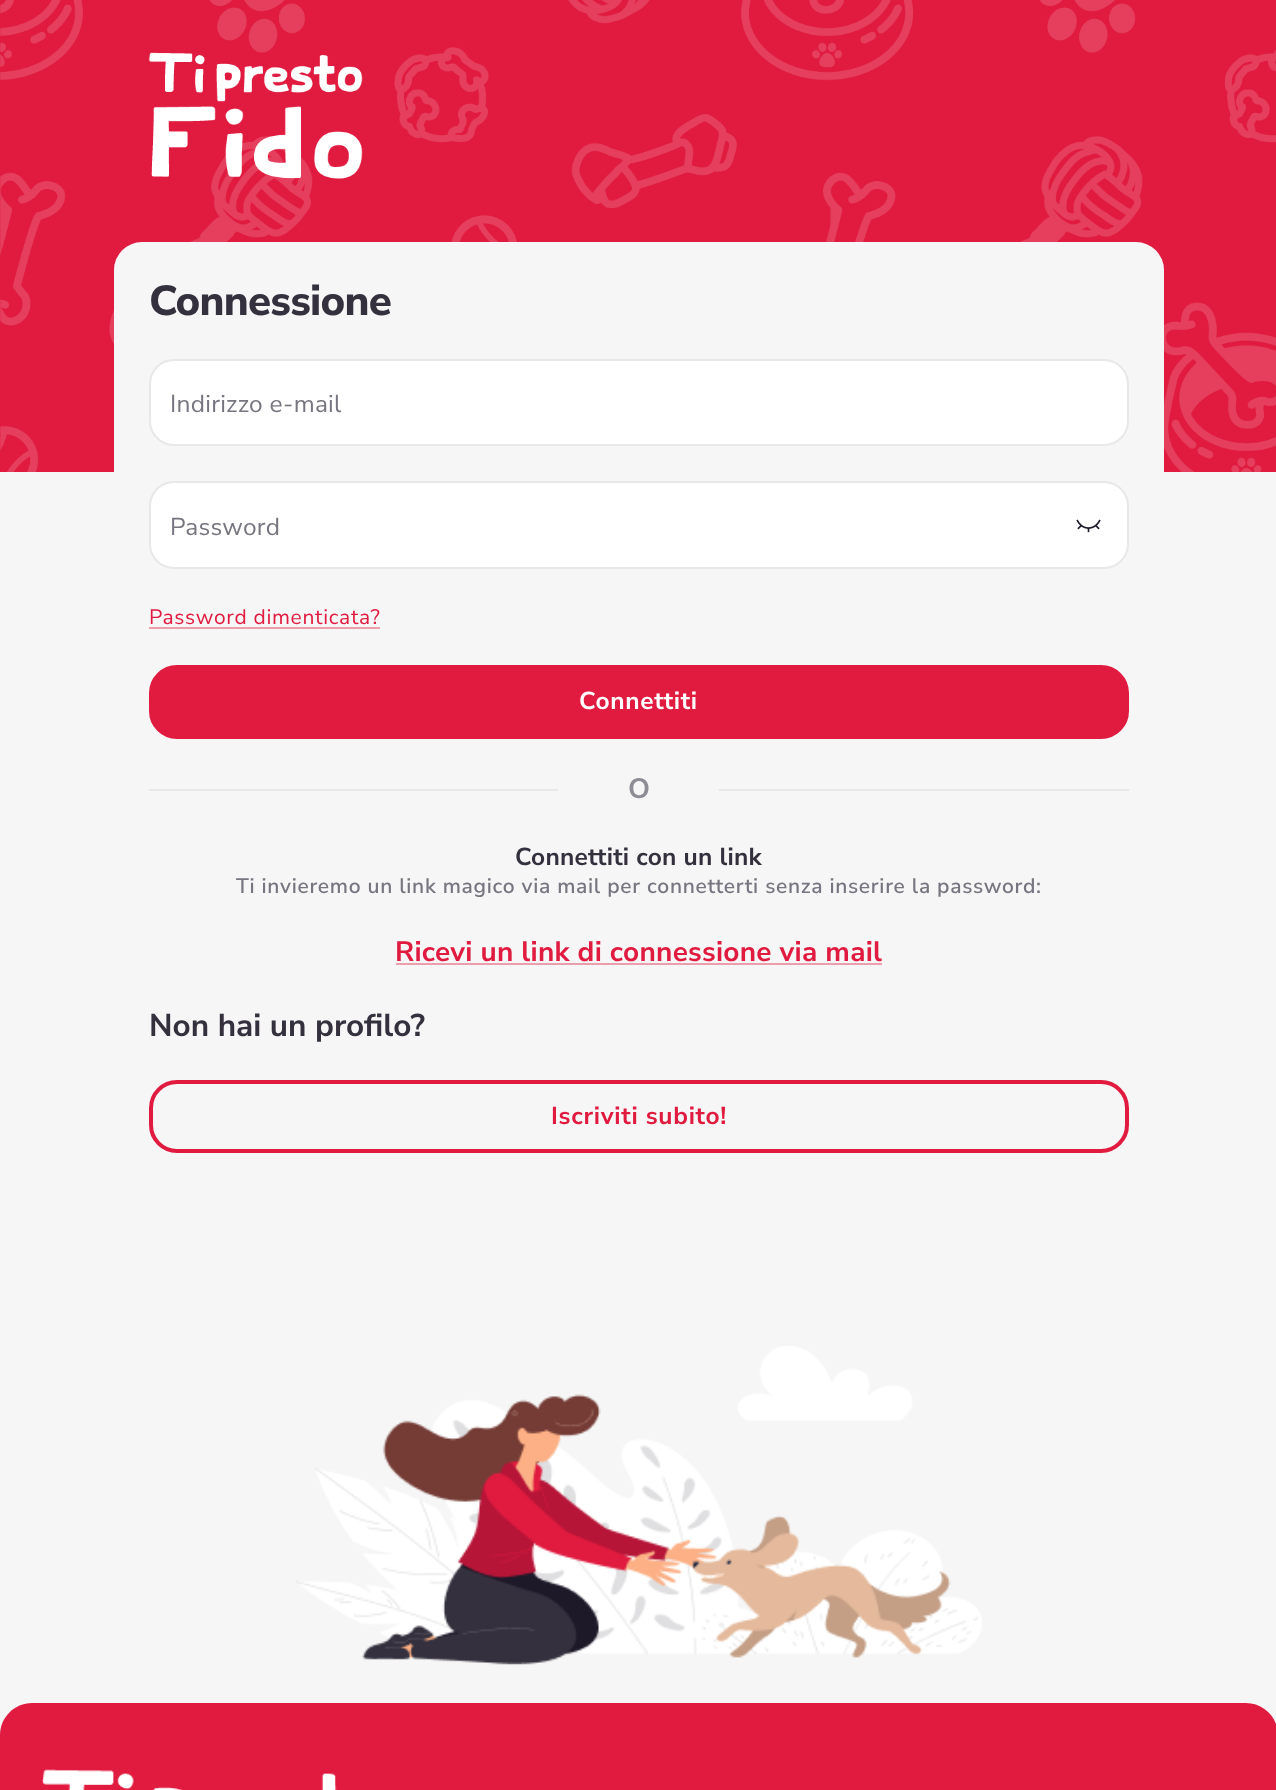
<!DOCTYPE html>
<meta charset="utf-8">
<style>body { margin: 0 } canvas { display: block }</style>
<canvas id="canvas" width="1276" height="1790"></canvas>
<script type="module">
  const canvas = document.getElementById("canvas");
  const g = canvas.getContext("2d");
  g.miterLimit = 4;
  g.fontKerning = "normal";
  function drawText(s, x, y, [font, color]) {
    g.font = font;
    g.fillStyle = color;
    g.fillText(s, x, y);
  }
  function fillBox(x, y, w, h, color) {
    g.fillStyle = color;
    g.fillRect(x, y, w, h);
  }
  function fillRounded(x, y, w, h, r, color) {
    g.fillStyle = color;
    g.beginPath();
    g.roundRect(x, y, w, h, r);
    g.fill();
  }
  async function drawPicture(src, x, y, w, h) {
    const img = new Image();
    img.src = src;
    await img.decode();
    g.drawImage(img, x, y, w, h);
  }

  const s1 = ["800 42px Nunito Sans", "#34303E"];
  const s2 = ["24.5px Nunito Sans", "#77757F"];
  const s3 = ["21px Nunito Sans", "#E01B3F"];
  const s4 = ["bold 24.5px Nunito Sans", "#FFFFFF"];
  const s5 = ["bold 28px Nunito Sans", "#8E8C94"];
  const s6 = ["bold 24.5px Nunito Sans", "#34303E"];
  const s7 = ["600 21px Nunito Sans", "#77757F"];
  const s8 = ["bold 28px Nunito Sans", "#E01B3F"];
  const s9 = ["bold 31.5px Nunito Sans", "#34303E"];
  const s10 = ["bold 24.5px Nunito Sans", "#E01B3F"];

  fillBox(0, 0, 1276, 1790, "#F6F6F6");
  await drawPicture("pic1.png", 0, 0, 1276, 472);
  await drawPicture("pic2.png", 148, 52, 215, 127);
  fillRounded(114, 242, 1050, 946, 28, "#F6F6F6");
  g.letterSpacing = "-0.75px";
  drawText("Connessione", 149, 315, s1);
  g.fillStyle = "#FFFFFF";
  g.beginPath();
  g.roundRect(150, 360, 978, 85, 24);
  g.fill();
  g.strokeStyle = "#E8E8EA";
  g.lineWidth = 2;
  g.stroke();
  g.letterSpacing = "0.25px";
  drawText("Indirizzo e-mail", 170, 412, s2);
  g.fillStyle = "#FFFFFF";
  g.beginPath();
  g.roundRect(150, 482, 978, 86, 24);
  g.fill();
  g.stroke();
  await drawPicture("pic3.png", 1076, 519, 25, 14);
  drawText("Password", 170, 535, s2);
  g.letterSpacing = "0.7px";
  drawText("Password dimenticata?", 149, 624, s3);
  fillBox(149, 627, 231, 2, "#ED9EAD");
  g.fillStyle = "#E01B3F";
  g.beginPath();
  g.roundRect(151, 667, 976, 70, 26);
  g.fill();
  g.strokeStyle = "#E01B3F";
  g.lineWidth = 4;
  g.stroke();
  drawText("Connettiti", 579, 709, s4);
  fillBox(149, 789, 409, 2, "#E8E8EA");
  g.letterSpacing = "0.25px";
  drawText("O", 628, 798, s5);
  fillBox(719, 789, 410, 2, "#E8E8EA");
  drawText("Connettiti con un link", 515, 865, s6);
  g.letterSpacing = "0.7px";
  drawText("Ti invieremo un link magico via mail per connetterti senza inserire la password:", 236, 893, s7);
  g.letterSpacing = "0.25px";
  drawText("Ricevi un link di connessione via mail", 395, 961, s8);
  fillBox(396, 963, 486, 2, "#ED9EAD");
  g.letterSpacing = "0px";
  drawText("Non hai un profilo?", 149, 1036, s9);
  g.beginPath();
  g.roundRect(151, 1082, 976, 69, 26);
  g.stroke();
  g.letterSpacing = "0.7px";
  drawText("Iscriviti subito!", 551, 1124, s10);
  await drawPicture("pic4.png", 296, 1346, 686, 319);
  g.beginPath();
  g.moveTo(32, 1703);
  g.lineTo(1246, 1703);
  g.bezierCurveTo(1263.5, 1703, 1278, 1717.5, 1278, 1735);
  g.lineTo(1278, 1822);
  g.lineTo(0, 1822);
  g.lineTo(0, 1735);
  g.bezierCurveTo(0, 1717.5, 14.5, 1703, 32, 1703);
  g.closePath();
  g.fill();
  await drawPicture("pic5.png", 42, 1769, 295, 21);
</script>
